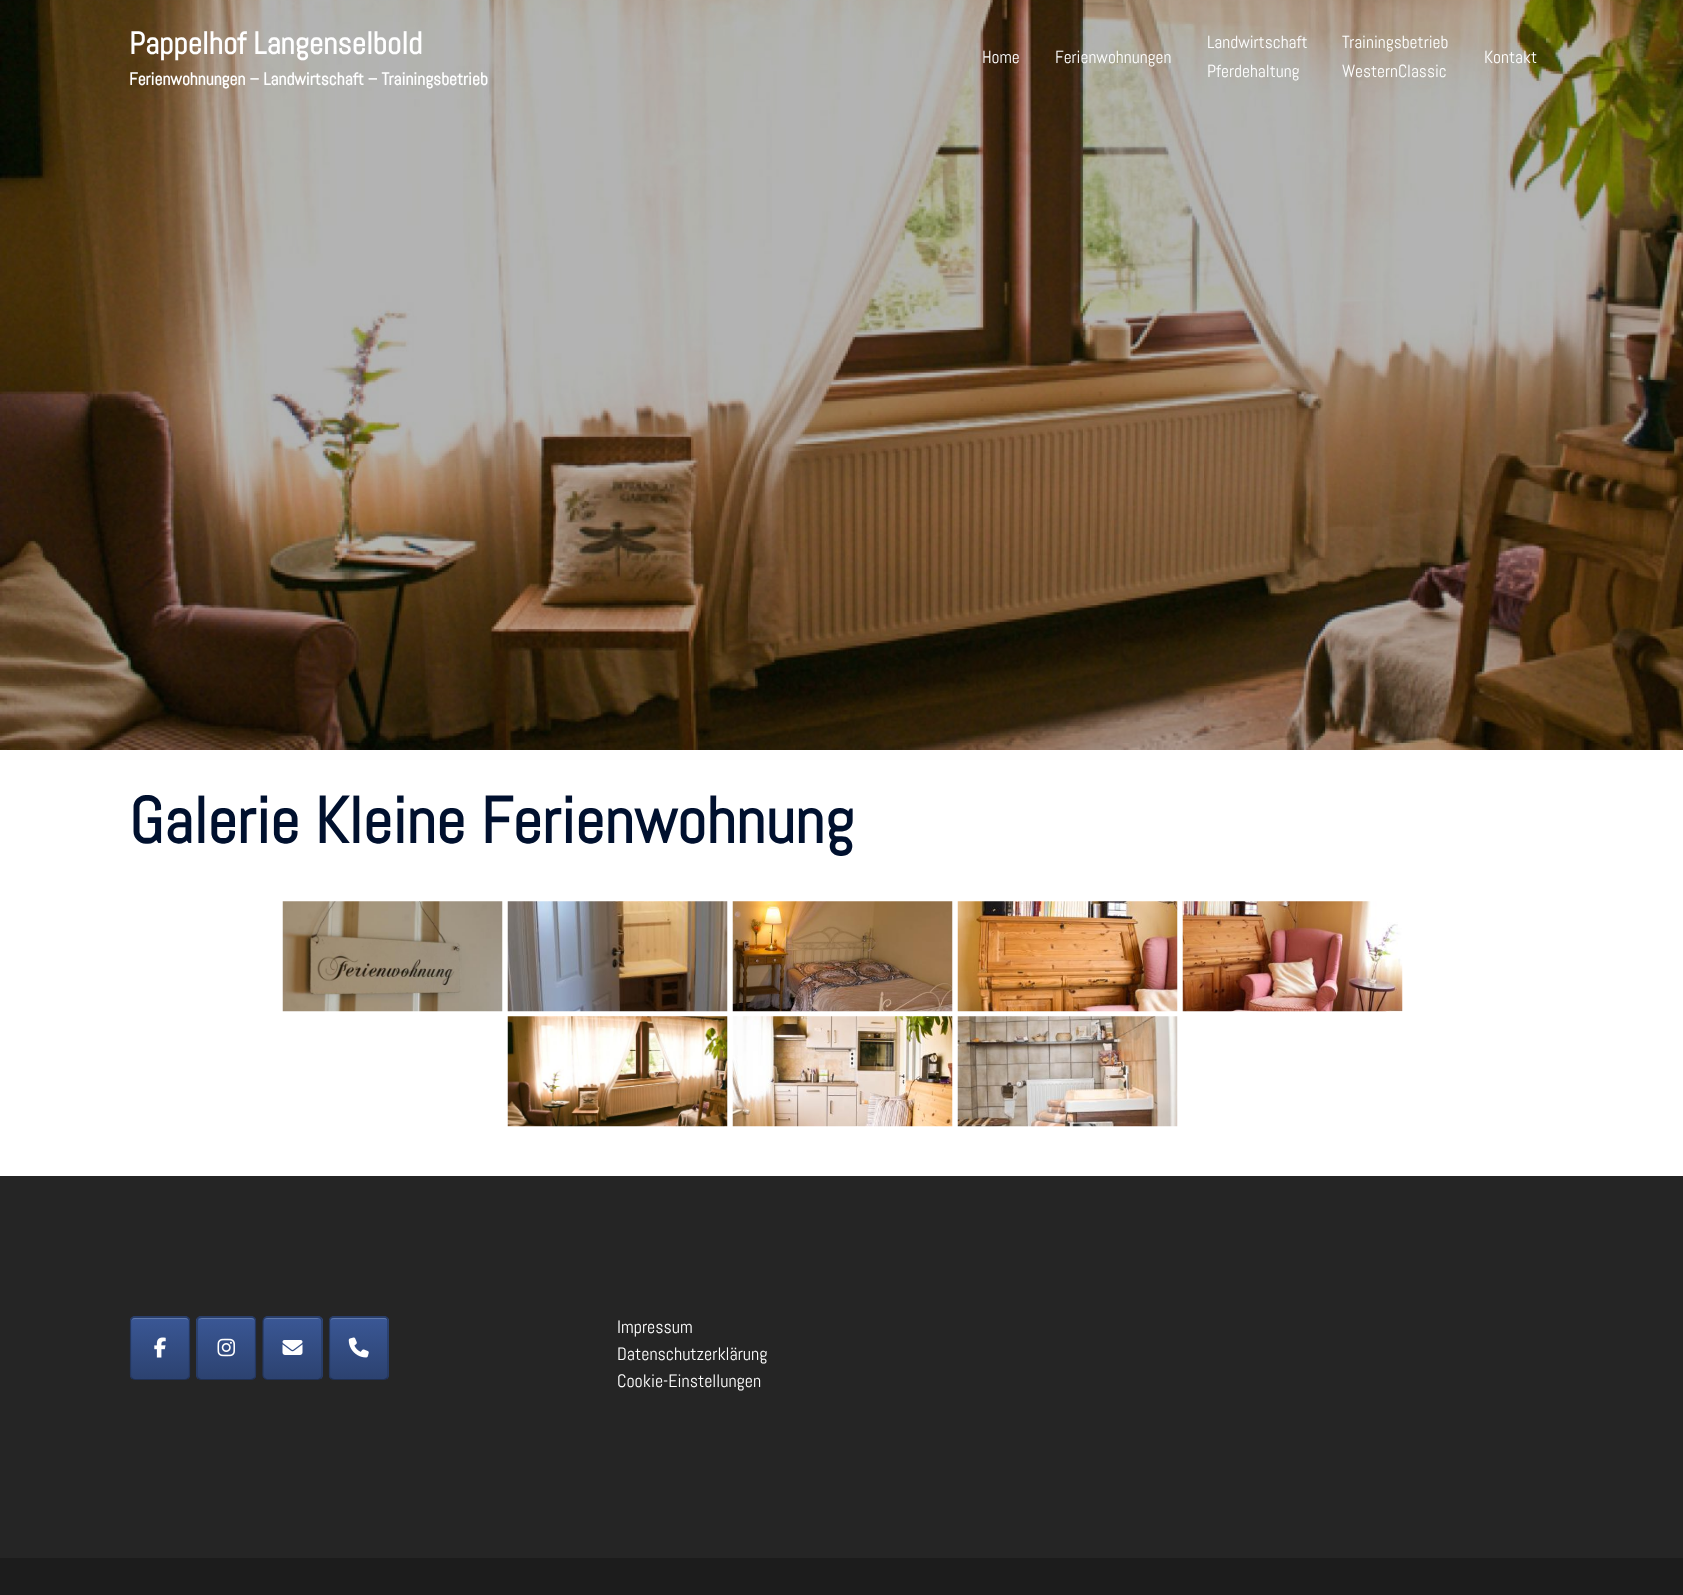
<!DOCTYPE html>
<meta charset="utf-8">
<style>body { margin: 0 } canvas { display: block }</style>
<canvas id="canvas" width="1683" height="1595"></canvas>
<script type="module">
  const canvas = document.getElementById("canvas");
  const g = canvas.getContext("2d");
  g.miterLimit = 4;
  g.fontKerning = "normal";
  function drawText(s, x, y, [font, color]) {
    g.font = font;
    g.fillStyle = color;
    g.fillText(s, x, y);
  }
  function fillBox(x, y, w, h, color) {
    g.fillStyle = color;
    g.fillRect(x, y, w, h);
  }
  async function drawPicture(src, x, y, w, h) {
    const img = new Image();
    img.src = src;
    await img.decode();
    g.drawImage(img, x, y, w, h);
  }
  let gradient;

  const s1 = ["bold 31.25px Abel", "#FFFFFF"];
  const s2 = ["bold 17.5px Abel", "#FFFFFF"];
  const s3 = ["17.5px Abel", "#FFFFFF"];
  const s4 = ["bold 65px Abel", "#00102E"];
  const s5 = ["18px Abel", "#FFFFFF"];

  fillBox(0, 0, 1683, 1595, "#FFFFFF");
  await drawPicture("pic1.png", 0, 0, 1683, 750);
  drawText("Pappelhof Langenselbold", 129, 54, s1);
  drawText("Ferienwohnungen – Landwirtschaft – Trainingsbetrieb", 129, 85, s2);
  drawText("Home", 982, 63, s3);
  drawText("Ferienwohnungen", 1055, 63, s3);
  drawText("Landwirtschaft", 1207, 48, s3);
  drawText("Pferdehaltung", 1207, 77, s3);
  drawText("Trainingsbetrieb", 1342, 48, s3);
  drawText("WesternClassic", 1342, 77, s3);
  drawText("Kontakt", 1484, 63, s3);
  drawText("Galerie Kleine Ferienwohnung", 129, 843, s4);
  await drawPicture("pic2.png", 282, 901, 221, 111);
  await drawPicture("pic3.png", 507, 901, 221, 111);
  await drawPicture("pic4.png", 732, 901, 221, 111);
  await drawPicture("pic5.png", 957, 901, 221, 111);
  await drawPicture("pic6.png", 1182, 901, 221, 111);
  await drawPicture("pic7.png", 507, 1016, 221, 111);
  await drawPicture("pic8.png", 732, 1016, 221, 111);
  await drawPicture("pic9.png", 957, 1016, 221, 111);
  fillBox(0, 1176, 1683, 382, "#252525");
  g.save();
  g.beginPath();
  g.roundRect(130, 1316, 60, 64, 5);
  g.clip();
  gradient = g.createLinearGradient(131, 1318, 131, 1256);
  gradient.addColorStop(0, "#2C4270");
  gradient.addColorStop(1, "#3A5795");
  g.fillStyle = gradient;
  g.fillRect(130, 1316, 60, 2);
  gradient = g.createLinearGradient(131, 1379, 131, 1318);
  gradient.addColorStop(0, "#2C4270");
  gradient.addColorStop(1, "#3A5795");
  g.fillStyle = gradient;
  g.fillRect(130, 1318, 60, 61);
  g.restore();
  g.fillStyle = "#6179AA";
  g.beginPath();
  g.moveTo(135, 1319);
  g.lineTo(185, 1319);
  g.bezierCurveTo(187, 1319, 189, 1320, 189, 1322);
  g.bezierCurveTo(189, 1320, 187, 1318, 185, 1318);
  g.lineTo(135, 1318);
  g.bezierCurveTo(133, 1318, 131, 1320, 131, 1322);
  g.bezierCurveTo(131, 1320, 133, 1319, 135, 1319);
  g.closePath();
  g.fill();
  g.beginPath();
  g.moveTo(132, 1318);
  g.bezierCurveTo(132.5, 1317.5, 134, 1317, 135, 1317);
  g.lineTo(185, 1317);
  g.bezierCurveTo(186, 1317, 187.5, 1317.5, 188, 1318);
  g.strokeStyle = "#273B65";
  g.lineWidth = 1.2;
  g.stroke();
  g.beginPath();
  g.moveTo(188, 1318);
  g.bezierCurveTo(189, 1319, 189.5, 1320, 189.5, 1321);
  g.lineTo(189.5, 1375);
  g.bezierCurveTo(189.5, 1376, 189, 1377.5, 188, 1378);
  g.strokeStyle = "#25375E";
  g.stroke();
  g.beginPath();
  g.moveTo(188, 1378);
  g.bezierCurveTo(187.5, 1379, 186, 1379.5, 185, 1379.5);
  g.lineTo(135, 1379.5);
  g.bezierCurveTo(134, 1379.5, 132.5, 1379, 132, 1378);
  g.strokeStyle = "#203053";
  g.stroke();
  g.beginPath();
  g.moveTo(132, 1378);
  g.bezierCurveTo(131, 1377.5, 130.5, 1376, 130.5, 1375);
  g.lineTo(130.5, 1321);
  g.bezierCurveTo(130.5, 1320, 131, 1319, 132, 1318);
  g.strokeStyle = "#25375E";
  g.stroke();
  await drawPicture("pic10.png", 154, 1337, 12, 21);
  g.save();
  g.beginPath();
  g.roundRect(196, 1316, 60, 64, 5);
  g.clip();
  gradient = g.createLinearGradient(198, 1318, 198, 1256);
  gradient.addColorStop(0, "#2C4270");
  gradient.addColorStop(1, "#3A5795");
  g.fillStyle = gradient;
  g.fillRect(196, 1316, 60, 2);
  gradient = g.createLinearGradient(198, 1379, 198, 1318);
  gradient.addColorStop(0, "#2C4270");
  gradient.addColorStop(1, "#3A5795");
  g.fillStyle = gradient;
  g.fillRect(196, 1318, 60, 61);
  g.restore();
  g.beginPath();
  g.moveTo(201, 1319);
  g.lineTo(251, 1319);
  g.bezierCurveTo(253, 1319, 255, 1320, 255, 1322);
  g.bezierCurveTo(255, 1320, 253, 1318, 251, 1318);
  g.lineTo(202, 1318);
  g.bezierCurveTo(201, 1318, 199, 1319, 199, 1320);
  g.closePath();
  g.fill();
  g.beginPath();
  g.moveTo(198, 1318);
  g.bezierCurveTo(199, 1317.5, 200, 1317, 201, 1317);
  g.lineTo(251, 1317);
  g.bezierCurveTo(252.5, 1317, 253.5, 1317.5, 254.5, 1318);
  g.strokeStyle = "#273B65";
  g.stroke();
  g.beginPath();
  g.moveTo(254.5, 1318);
  g.bezierCurveTo(255, 1319, 255.5, 1320, 255.5, 1321);
  g.lineTo(255.5, 1375);
  g.bezierCurveTo(255.5, 1376, 255, 1377.5, 254.5, 1378);
  g.strokeStyle = "#25375E";
  g.stroke();
  g.beginPath();
  g.moveTo(254.5, 1378);
  g.bezierCurveTo(253.5, 1379, 252.5, 1379.5, 251, 1379.5);
  g.lineTo(201, 1379.5);
  g.bezierCurveTo(200, 1379.5, 199, 1379, 198, 1378);
  g.strokeStyle = "#203053";
  g.stroke();
  g.beginPath();
  g.moveTo(198, 1378);
  g.bezierCurveTo(197.5, 1377.5, 197, 1376, 197, 1375);
  g.lineTo(197, 1321);
  g.bezierCurveTo(197, 1320, 197.5, 1319, 198, 1318);
  g.strokeStyle = "#25375E";
  g.stroke();
  await drawPicture("pic11.png", 217, 1338, 18, 19);
  g.save();
  g.beginPath();
  g.roundRect(263, 1316, 60, 64, 5);
  g.clip();
  gradient = g.createLinearGradient(264, 1318, 264, 1256);
  gradient.addColorStop(0, "#2C4270");
  gradient.addColorStop(1, "#3A5795");
  g.fillStyle = gradient;
  g.fillRect(263, 1316, 60, 2);
  gradient = g.createLinearGradient(264, 1379, 264, 1318);
  gradient.addColorStop(0, "#2C4270");
  gradient.addColorStop(1, "#3A5795");
  g.fillStyle = gradient;
  g.fillRect(263, 1318, 60, 61);
  g.restore();
  g.beginPath();
  g.moveTo(268, 1319);
  g.lineTo(319, 1319);
  g.lineTo(320, 1320);
  g.bezierCurveTo(320, 1319, 318, 1318, 317, 1318);
  g.lineTo(268, 1318);
  g.bezierCurveTo(266, 1318, 265, 1319, 264, 1320);
  g.bezierCurveTo(265, 1319, 266, 1319, 268, 1319);
  g.closePath();
  g.fill();
  g.beginPath();
  g.moveTo(264.5, 1318);
  g.bezierCurveTo(265, 1317.5, 266.5, 1317, 267.5, 1317);
  g.lineTo(317.5, 1317);
  g.bezierCurveTo(318.5, 1317, 320, 1317.5, 320.5, 1318);
  g.strokeStyle = "#273B65";
  g.stroke();
  g.beginPath();
  g.moveTo(320.5, 1318);
  g.bezierCurveTo(321.5, 1319, 322, 1320, 322, 1321);
  g.lineTo(322, 1375);
  g.bezierCurveTo(322, 1376, 321.5, 1377.5, 320.5, 1378);
  g.strokeStyle = "#25375E";
  g.stroke();
  g.beginPath();
  g.moveTo(320.5, 1378);
  g.bezierCurveTo(320, 1379, 318.5, 1379.5, 317.5, 1379.5);
  g.lineTo(267.5, 1379.5);
  g.bezierCurveTo(266.5, 1379.5, 265, 1379, 264.5, 1378);
  g.strokeStyle = "#203053";
  g.stroke();
  g.beginPath();
  g.moveTo(264.5, 1378);
  g.bezierCurveTo(263.5, 1377.5, 263, 1376, 263, 1375);
  g.lineTo(263, 1321);
  g.bezierCurveTo(263, 1320, 263.5, 1319, 264.5, 1318);
  g.strokeStyle = "#25375E";
  g.stroke();
  await drawPicture("pic12.png", 282, 1340, 21, 15);
  g.save();
  g.beginPath();
  g.roundRect(329, 1316, 60, 64, 5);
  g.clip();
  gradient = g.createLinearGradient(330, 1318, 330, 1256);
  gradient.addColorStop(0, "#2C4270");
  gradient.addColorStop(1, "#3A5795");
  g.fillStyle = gradient;
  g.fillRect(329, 1316, 60, 2);
  gradient = g.createLinearGradient(330, 1379, 330, 1318);
  gradient.addColorStop(0, "#2C4270");
  gradient.addColorStop(1, "#3A5795");
  g.fillStyle = gradient;
  g.fillRect(329, 1318, 60, 61);
  g.restore();
  g.beginPath();
  g.moveTo(334, 1319);
  g.lineTo(384, 1319);
  g.bezierCurveTo(386, 1319, 388, 1320, 388, 1322);
  g.bezierCurveTo(388, 1320, 386, 1318, 384, 1318);
  g.lineTo(334, 1318);
  g.bezierCurveTo(332, 1318, 330, 1320, 330, 1322);
  g.bezierCurveTo(330, 1320, 332, 1319, 334, 1319);
  g.closePath();
  g.fill();
  g.beginPath();
  g.moveTo(330.5, 1318);
  g.bezierCurveTo(331.5, 1317.5, 332.5, 1317, 334, 1317);
  g.lineTo(384, 1317);
  g.bezierCurveTo(385, 1317, 386, 1317.5, 387, 1318);
  g.strokeStyle = "#273B65";
  g.stroke();
  g.beginPath();
  g.moveTo(387, 1318);
  g.bezierCurveTo(387.5, 1319, 388, 1320, 388, 1321);
  g.lineTo(388, 1375);
  g.bezierCurveTo(388, 1376, 387.5, 1377.5, 387, 1378);
  g.strokeStyle = "#25375E";
  g.stroke();
  g.beginPath();
  g.moveTo(387, 1378);
  g.bezierCurveTo(386, 1379, 385, 1379.5, 384, 1379.5);
  g.lineTo(334, 1379.5);
  g.bezierCurveTo(332.5, 1379.5, 331.5, 1379, 330.5, 1378);
  g.strokeStyle = "#203053";
  g.stroke();
  g.beginPath();
  g.moveTo(330.5, 1378);
  g.bezierCurveTo(330, 1377.5, 329.5, 1376, 329.5, 1375);
  g.lineTo(329.5, 1321);
  g.bezierCurveTo(329.5, 1320, 330, 1319, 330.5, 1318);
  g.strokeStyle = "#25375E";
  g.stroke();
  await drawPicture("pic13.png", 348, 1337, 21, 21);
  drawText("Impressum", 617, 1333, s5);
  drawText("Datenschutzerklärung", 617, 1360, s5);
  drawText("Cookie-Einstellungen", 617, 1387, s5);
  fillBox(0, 1558, 1683, 37, "#1C1C1C");
</script>
